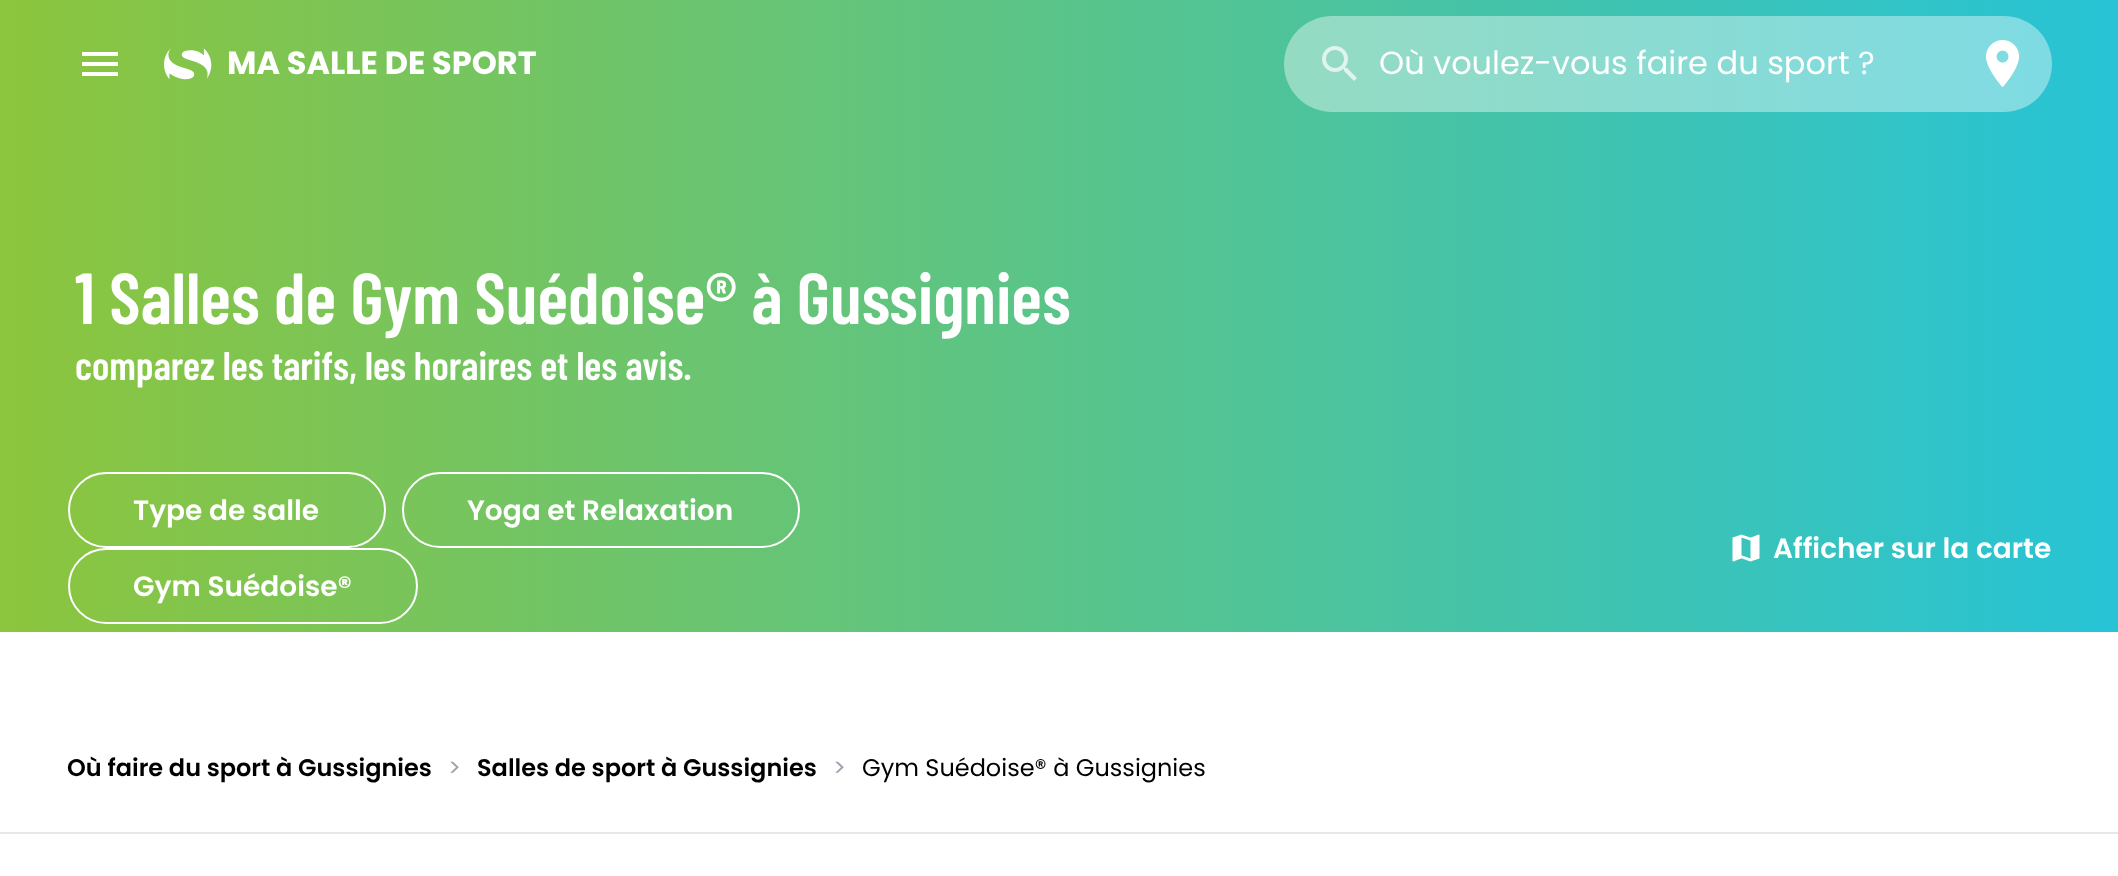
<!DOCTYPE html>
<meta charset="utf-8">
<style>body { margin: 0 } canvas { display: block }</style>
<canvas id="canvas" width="2118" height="876"></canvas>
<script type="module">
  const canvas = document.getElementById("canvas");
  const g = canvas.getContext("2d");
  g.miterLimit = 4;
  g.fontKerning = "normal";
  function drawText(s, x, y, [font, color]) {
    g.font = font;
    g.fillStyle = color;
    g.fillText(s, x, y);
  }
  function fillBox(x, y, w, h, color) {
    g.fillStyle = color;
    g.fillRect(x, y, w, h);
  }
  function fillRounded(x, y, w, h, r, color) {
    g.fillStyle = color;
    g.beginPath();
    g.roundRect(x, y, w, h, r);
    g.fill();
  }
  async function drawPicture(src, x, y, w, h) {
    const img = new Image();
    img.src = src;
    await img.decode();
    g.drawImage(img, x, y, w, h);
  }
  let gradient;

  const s1 = ["bold 32px Poppins", "#FFFFFF"];
  const s2 = ["32px Poppins", "#FFFFFF"];
  const s3 = ["600 72px Barlow Condensed", "#FFFFFF"];
  const s4 = ["600 40px Barlow Condensed", "#FFFFFF"];
  const s5 = ["600 28px Poppins", "#FFFFFF"];
  const s6 = ["600 24px Poppins", "#000000"];
  const s7 = ["24px Poppins", "#9CA3AF"];
  const s8 = ["24px Poppins", "#000000"];

  fillBox(0, 0, 2118, 876, "#FFFFFF");
  gradient = g.createLinearGradient(0, 316, 2118, 316);
  gradient.addColorStop(0, "#8CC53D");
  gradient.addColorStop(1, "#27C3D6");
  g.fillStyle = gradient;
  g.fillRect(0, 0, 2118, 632);
  g.fillStyle = "#FFFFFF";
  g.beginPath();
  g.moveTo(82, 76);
  g.lineTo(118, 76);
  g.lineTo(118, 72);
  g.lineTo(82, 72);
  g.closePath();
  g.moveTo(82, 66);
  g.lineTo(118, 66);
  g.lineTo(118, 62);
  g.lineTo(82, 62);
  g.closePath();
  g.moveTo(82, 52);
  g.lineTo(82, 56);
  g.lineTo(118, 56);
  g.lineTo(118, 52);
  g.closePath();
  g.fill();
  await drawPicture("pic1.png", 164, 48, 48, 32);
  drawText("MA SALLE DE SPORT", 227, 74, s1);
  fillRounded(1284, 16, 768, 96, 48, "rgba(255, 255, 255, 0.4)");
  await drawPicture("pic2.png", 1322, 46, 35, 35);
  drawText("Où voulez-vous faire du sport ?", 1379, 74, s2);
  await drawPicture("pic3.png", 1986, 40, 34, 48);
  drawText("1 Salles de Gym Suédoise® à Gussignies", 75, 324, s3);
  drawText("comparez les tarifs, les horaires et les avis.", 75, 380, s4);
  g.beginPath();
  g.roundRect(69, 473, 316, 74, 37);
  g.strokeStyle = "#FFFFFF";
  g.lineWidth = 2;
  g.stroke();
  drawText("Type de salle", 133, 520, s5);
  g.beginPath();
  g.roundRect(403, 473, 396, 74, 37);
  g.stroke();
  drawText("Yoga et Relaxation", 467, 520, s5);
  g.beginPath();
  g.roundRect(69, 549, 348, 74, 37);
  g.stroke();
  drawText("Gym Suédoise®", 133, 596, s5);
  await drawPicture("pic4.png", 1732, 534, 28, 28);
  drawText("Afficher sur la carte", 1773, 558, s5);
  drawText("Où faire du sport à Gussignies", 67, 776, s6);
  drawText(">", 448, 776, s7);
  drawText("Salles de sport à Gussignies", 477, 776, s6);
  drawText(">", 833, 776, s7);
  drawText("Gym Suédoise® à Gussignies", 862, 776, s8);
  fillBox(0, 832, 2118, 2, "#E5E7EB");
</script>
